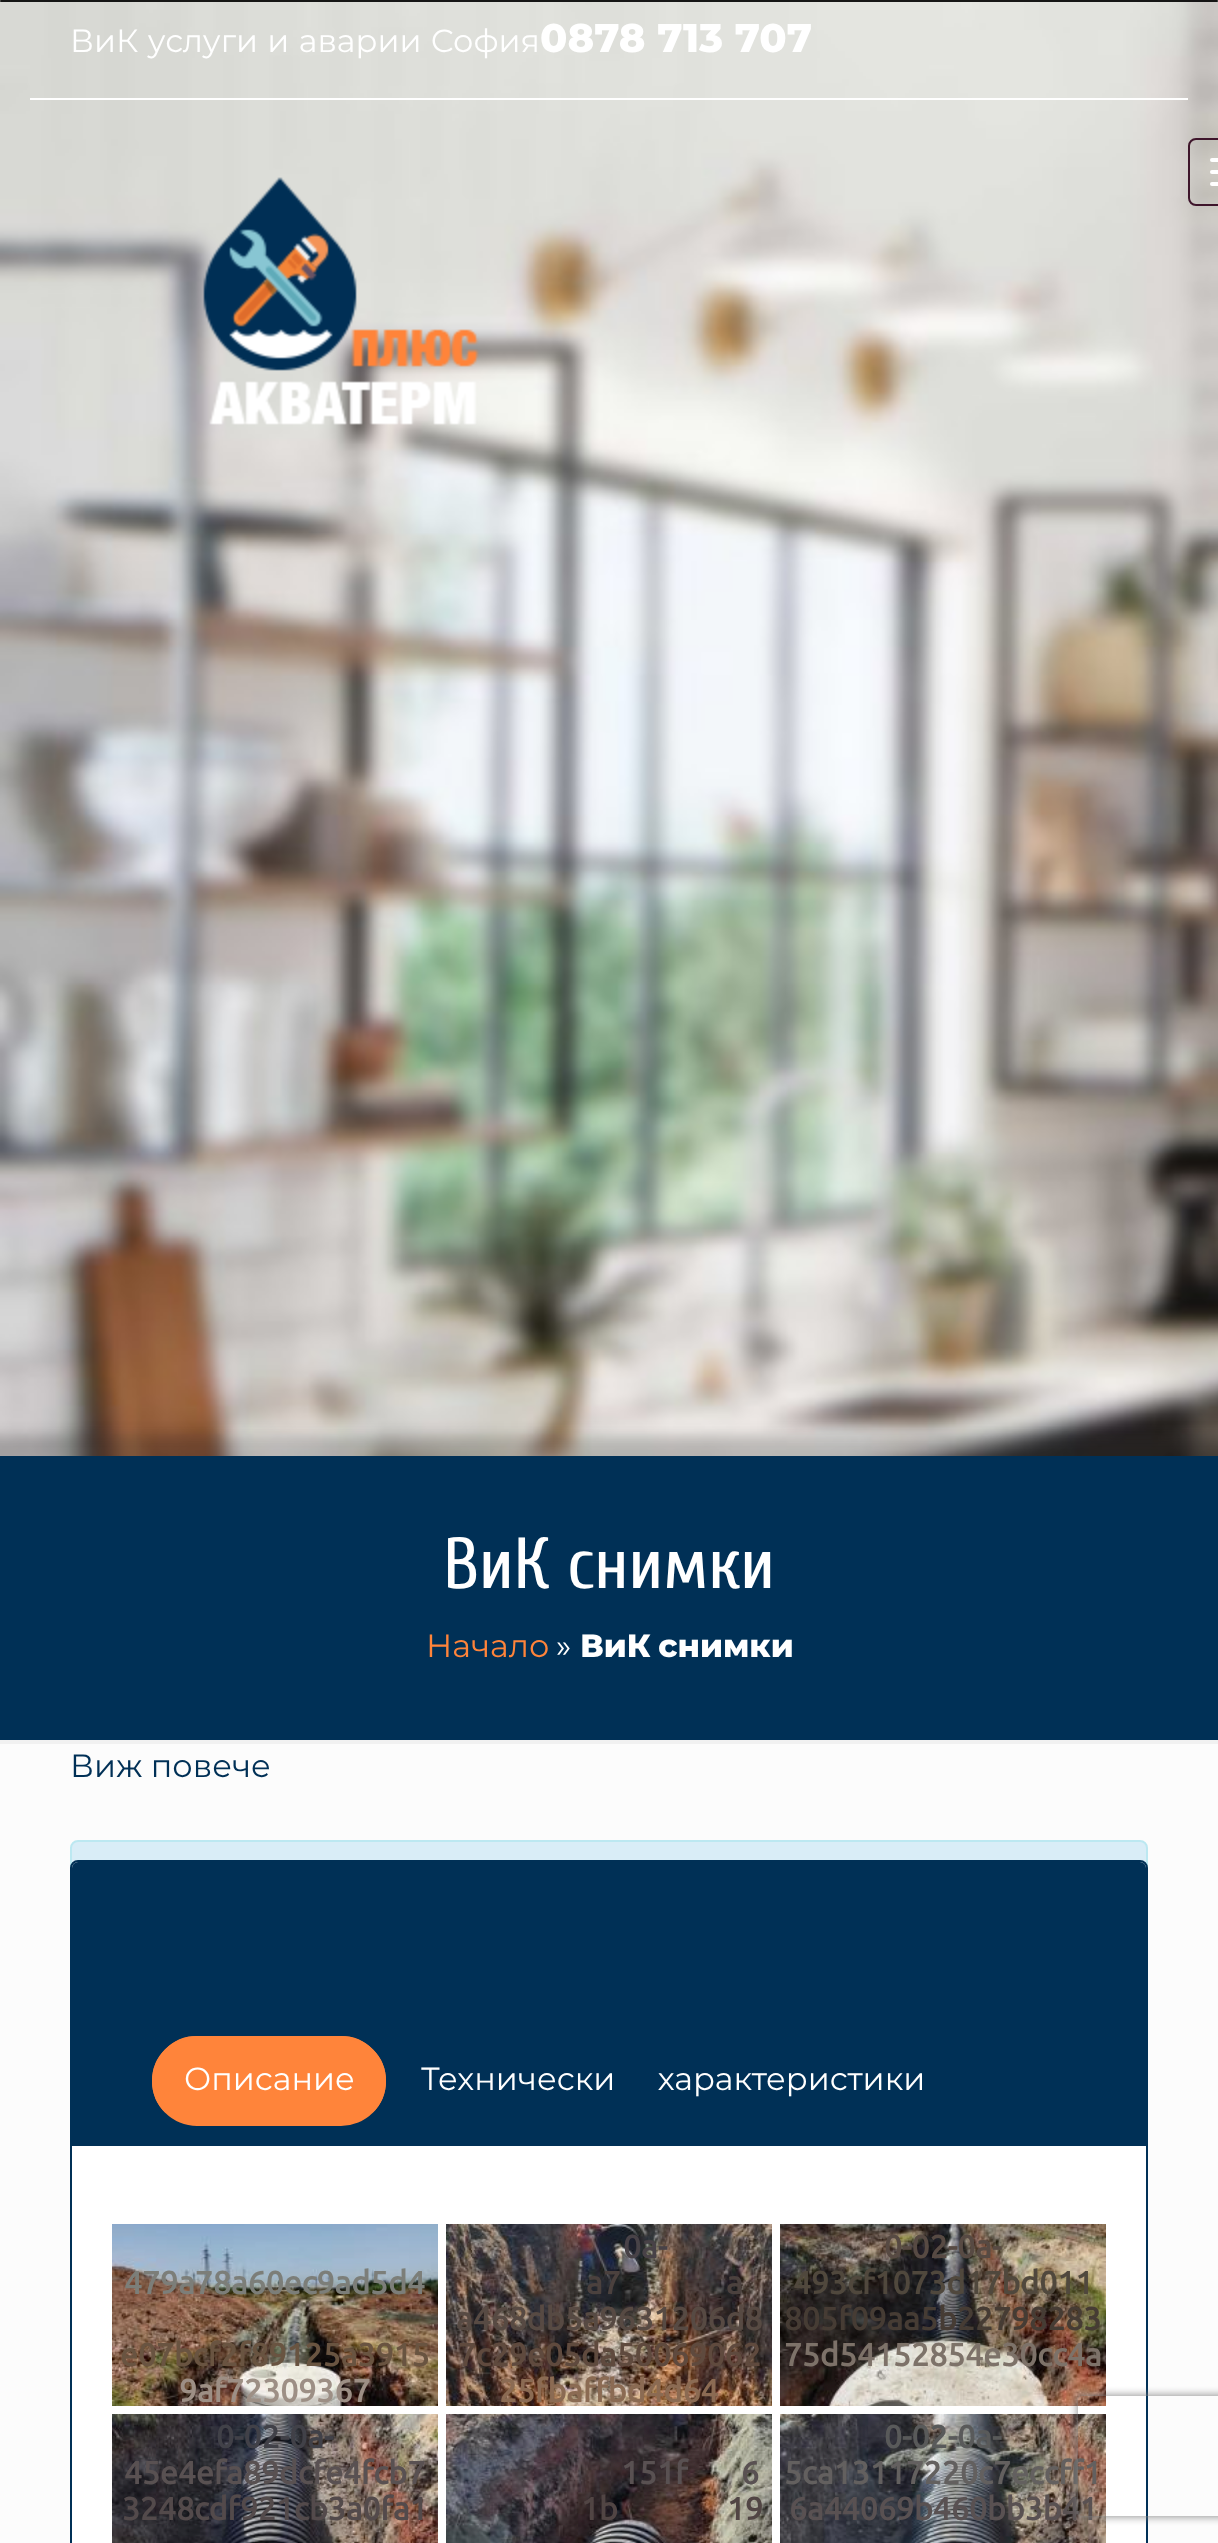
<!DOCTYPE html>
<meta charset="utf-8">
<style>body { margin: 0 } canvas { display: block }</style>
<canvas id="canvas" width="1218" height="2543"></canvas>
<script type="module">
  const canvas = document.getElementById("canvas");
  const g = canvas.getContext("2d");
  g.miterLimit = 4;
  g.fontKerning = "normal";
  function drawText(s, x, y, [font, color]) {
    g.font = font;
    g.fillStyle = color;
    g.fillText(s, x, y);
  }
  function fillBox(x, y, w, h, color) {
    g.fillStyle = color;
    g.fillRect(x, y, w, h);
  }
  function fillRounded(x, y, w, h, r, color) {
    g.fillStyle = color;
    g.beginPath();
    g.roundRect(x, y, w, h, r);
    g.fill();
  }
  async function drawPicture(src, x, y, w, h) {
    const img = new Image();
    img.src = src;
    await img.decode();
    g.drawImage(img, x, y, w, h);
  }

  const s1 = ["32px Montserrat", "#FFFFFF"];
  const s2 = ["800 40px Montserrat", "#FFFFFF"];
  const s3 = ["72px Cuprum", "#FFFFFF"];
  const s4 = ["32px Montserrat", "#FF843A"];
  const s5 = ["800 32px Montserrat", "#FFFFFF"];
  const s6 = ["32px Montserrat", "#003056"];
  const s7 = ["bold 32px Ubuntu", "#7C7E79"];
  const s8 = ["bold 32px Ubuntu", "#695441"];
  const s9 = ["bold 32px Ubuntu", "#9D8F85"];
  const s10 = ["bold 32px Ubuntu", "#484247"];
  const s11 = ["bold 32px Ubuntu", "#4B413E"];
  const s12 = ["bold 32px Ubuntu", "#574A43"];
  const s13 = ["bold 32px Ubuntu", "#5F4A3E"];
  const s14 = ["bold 32px Ubuntu", "#8B6B53"];
  const s15 = ["bold 32px Ubuntu", "#50483D"];
  const s16 = ["bold 32px Ubuntu", "#463C34"];
  const s17 = ["bold 32px Ubuntu", "#7D7269"];
  const s18 = ["bold 32px Ubuntu", "#414148"];
  const s19 = ["bold 32px Ubuntu", "#595152"];
  const s20 = ["bold 32px Ubuntu", "#534A4B"];
  const s21 = ["bold 32px Ubuntu", "#514544"];
  const s22 = ["bold 32px Ubuntu", "#595A5A"];
  const s23 = ["bold 32px Ubuntu", "#63605F"];

  fillBox(0, 0, 1218, 2543, "#FCFCFC");
  await drawPicture("pic1.png", 0, 0, 1218, 1456);
  fillRounded(0, 0, 1218, 2, 1, "rgba(0, 0, 0, 0.9)");
  fillBox(30, 98, 1158, 2, "#FFFFFF");
  g.wordSpacing = "1px";
  drawText("ВиК услуги и аварии София", 70, 52, s1);
  g.wordSpacing = "0px";
  drawText("0878 713 707", 540, 52, s2);
  await drawPicture("pic2.png", 203, 177, 276, 248);
  g.beginPath();
  g.roundRect(1189, 139, 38, 66, 7);
  g.strokeStyle = "#3E152B";
  g.lineWidth = 2;
  g.stroke();
  g.beginPath();
  g.roundRect(1210, 158, 8, 4, [2, 0, 0, 2]);
  g.fill();
  g.beginPath();
  g.roundRect(1210, 170, 8, 4, [2, 0, 0, 2]);
  g.fill();
  g.beginPath();
  g.roundRect(1210, 182, 8, 4, [2, 0, 0, 2]);
  g.fill();
  g.fillStyle = "rgba(50, 50, 50, 0.25)";
  g.filter = "blur(7px)";
  g.beginPath();
  g.rect(-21, 1436, 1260, 288);
  g.fill();
  g.filter = "none";
  fillBox(0, 1456, 1218, 284, "#003056");
  fillBox(0, 1740, 1218, 4, "#F1F1F1");
  drawText("ВиК снимки", 443, 1588, s3);
  drawText("Начало", 426, 1657, s4);
  drawText("»", 556, 1657, s1);
  g.wordSpacing = "-2px";
  drawText("ВиК снимки", 580, 1657, s5);
  g.wordSpacing = "0px";
  drawText("Виж повече", 70, 1777, s6);
  g.fillStyle = "#D9EDF7";
  g.beginPath();
  g.roundRect(71, 1841, 1076, 154, 7);
  g.fill();
  g.strokeStyle = "#BCE8F1";
  g.stroke();
  g.fillStyle = "#FFFFFF";
  g.beginPath();
  g.roundRect(71, 1861, 1076, 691, 7);
  g.fill();
  g.strokeStyle = "#003056";
  g.stroke();
  g.fillStyle = "#003056";
  g.beginPath();
  g.roundRect(72, 1862, 1074, 284, [6, 6, 0, 0]);
  g.fill();
  fillRounded(152, 2036, 234, 90, 45, "#FF843A");
  g.beginPath();
  g.moveTo(166, 2112);
  g.bezierCurveTo(157.5, 2104, 153, 2092.5, 153, 2081);
  g.bezierCurveTo(153, 2069.5, 157.5, 2058, 166, 2050);
  g.bezierCurveTo(174, 2041.5, 185.5, 2037, 197, 2037);
  g.lineTo(341, 2037);
  g.bezierCurveTo(352.5, 2037, 364, 2041.5, 372, 2050);
  g.bezierCurveTo(380.5, 2058, 385, 2069.5, 385, 2081);
  g.bezierCurveTo(385, 2092.5, 380.5, 2104, 372, 2112);
  g.strokeStyle = "#FF843A";
  g.stroke();
  drawText("Описание", 184, 2090, s1);
  g.wordSpacing = "34px";
  drawText("Технически характеристики", 421, 2090, s1);
  await drawPicture("pic3.png", 112, 2224, 326, 182);
  g.wordSpacing = "0px";
  drawText("479a78a60ec9ad5d4", 124, 2294, s7);
  drawText("e07bcf2f89125a3915", 120, 2366, s8);
  drawText("9af72309367", 179, 2402, s9);
  await drawPicture("pic4.png", 446, 2224, 326, 182);
  drawText("0a-", 623, 2258, s10);
  drawText("a7", 586, 2294, s11);
  drawText("a", 726, 2294, s11);
  drawText("a468db5a9631206d8", 456, 2330, s12);
  drawText("7c29e05da50069062", 458, 2366, s13);
  drawText("25fbaffbd4d64", 499, 2402, s14);
  await drawPicture("pic5.png", 780, 2224, 326, 182);
  drawText("0-02-0a-", 884, 2258, s12);
  drawText("493cf1073d17bd011", 793, 2294, s15);
  drawText("805f09aa5b22798283", 784, 2330, s16);
  drawText("75d54152854e30cc4a", 784, 2366, s17);
  await drawPicture("pic6.png", 112, 2414, 326, 129);
  drawText("0-02-0a-", 216, 2448, s18);
  drawText("45e4efa89dcfe4fcb7", 124, 2484, s19);
  drawText("3248cdf921cb3a0fa1", 122, 2520, s20);
  await drawPicture("pic7.png", 446, 2414, 326, 129);
  drawText("151f", 621, 2484, s19);
  drawText("6", 741, 2484, s19);
  drawText("1b", 581, 2520, s21);
  drawText("19", 727, 2520, s21);
  await drawPicture("pic8.png", 780, 2414, 326, 129);
  drawText("0-02-0a-", 884, 2448, s22);
  drawText("5ca13117220c7eccff1", 784, 2484, s23);
  drawText("6a44069b460bb3b41", 789, 2520, s19);
  g.save();
  g.beginPath();
  g.moveTo(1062, 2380);
  g.lineTo(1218, 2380);
  g.lineTo(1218, 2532);
  g.lineTo(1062, 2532);
  g.closePath();
  g.moveTo(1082, 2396);
  g.lineTo(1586, 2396);
  g.bezierCurveTo(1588, 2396, 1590, 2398, 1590, 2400);
  g.lineTo(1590, 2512);
  g.bezierCurveTo(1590, 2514, 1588, 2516, 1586, 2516);
  g.lineTo(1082, 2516);
  g.bezierCurveTo(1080, 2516, 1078, 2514, 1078, 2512);
  g.lineTo(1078, 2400);
  g.bezierCurveTo(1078, 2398, 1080, 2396, 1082, 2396);
  g.closePath();
  g.clip("evenodd");
  g.fillStyle = "#808080";
  g.filter = "blur(5px)";
  g.beginPath();
  g.roundRect(1078, 2396, 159, 120, 4);
  g.fill();
  g.filter = "none";
  g.restore();
</script>
